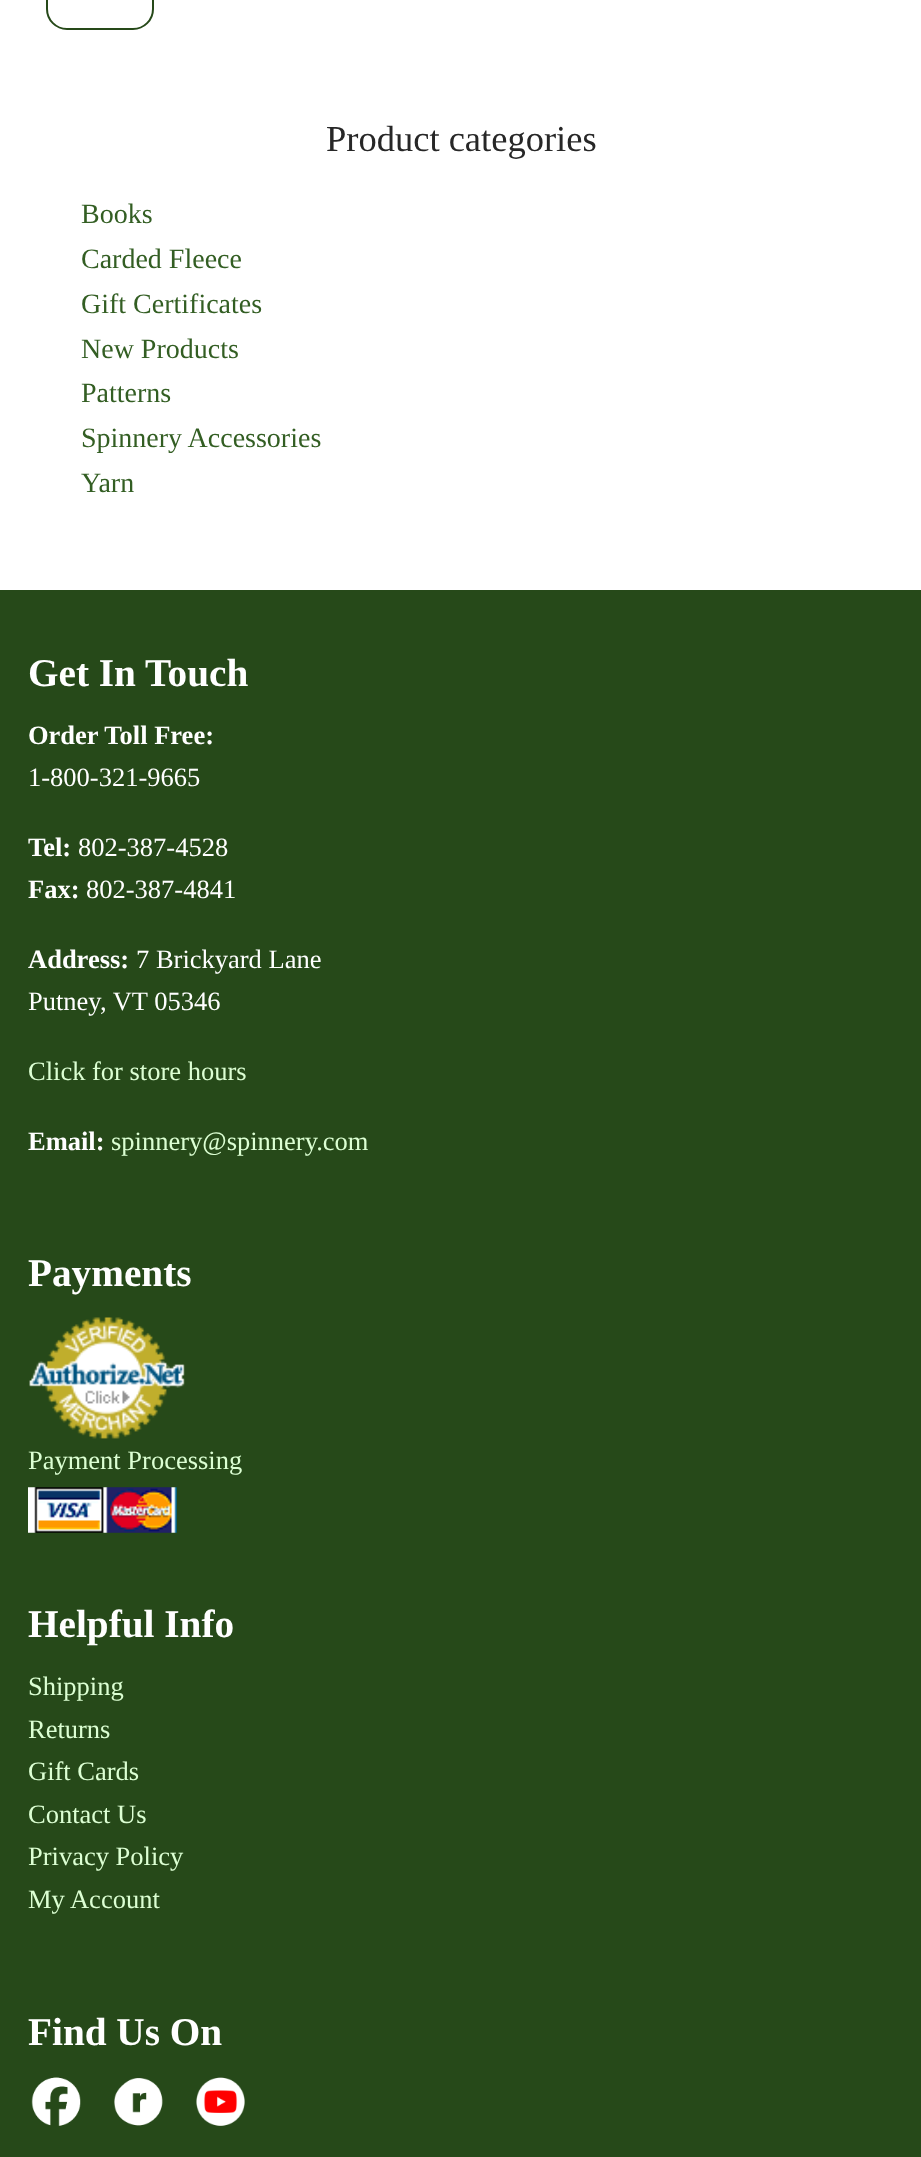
<!DOCTYPE html>
<meta charset="utf-8">
<style>body { margin: 0 } canvas { display: block }</style>
<canvas id="canvas" width="921" height="2157"></canvas>
<script type="module">
  const canvas = document.getElementById("canvas");
  const g = canvas.getContext("2d");
  g.miterLimit = 4;
  g.fontKerning = "normal";
  function drawText(s, x, y, [font, color]) {
    g.font = font;
    g.fillStyle = color;
    g.fillText(s, x, y);
  }
  function fillBox(x, y, w, h, color) {
    g.fillStyle = color;
    g.fillRect(x, y, w, h);
  }
  async function drawPicture(src, x, y, w, h) {
    const img = new Image();
    img.src = src;
    await img.decode();
    g.drawImage(img, x, y, w, h);
  }

  const s1 = ["36.5px Liberation Serif", "#272727"];
  const s2 = ["28px Liberation Serif", "#335E23"];
  const s3 = ["bold 39.25px Liberation Serif", "#FFFFFF"];
  const s4 = ["bold 26.5px Liberation Serif", "#FFFFFF"];
  const s5 = ["26.5px Liberation Serif", "#FFFFFF"];
  const s6 = ["26.5px Liberation Serif", "#DCFFD3"];

  fillBox(0, 0, 921, 2157, "#FFFFFF");
  g.beginPath();
  g.roundRect(47, -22, 106, 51, 20);
  g.strokeStyle = "#264919";
  g.lineWidth = 2;
  g.stroke();
  drawText("Product categories", 326, 151, s1);
  drawText("Books", 81, 223, s2);
  drawText("Carded Fleece", 81, 268, s2);
  drawText("Gift Certificates", 81, 313, s2);
  drawText("New Products", 81, 358, s2);
  drawText("Patterns", 81, 402, s2);
  drawText("Spinnery Accessories", 81, 447, s2);
  drawText("Yarn", 81, 492, s2);
  fillBox(0, 590, 921, 1567, "#264919");
  drawText("Get In Touch", 28, 686, s3);
  drawText("Order Toll Free:", 28, 744, s4);
  drawText("1-800-321-9665", 28, 786, s5);
  drawText("Tel:", 28, 856, s4);
  drawText("802-387-4528", 78, 856, s5);
  drawText("Fax:", 28, 898, s4);
  drawText("802-387-4841", 86, 898, s5);
  drawText("Address:", 28, 968, s4);
  drawText("7 Brickyard Lane", 136, 968, s5);
  drawText("Putney, VT 05346", 28, 1010, s5);
  drawText("Click for store hours", 28, 1080, s6);
  drawText("Email:", 28, 1150, s4);
  drawText("spinnery@spinnery.com", 111, 1150, s6);
  drawText("Payments", 28, 1286, s3);
  await drawPicture("pic1.png", 29, 1317, 156, 122);
  drawText("Payment Processing", 28, 1469, s6);
  await drawPicture("pic2.png", 28, 1487, 149, 46);
  drawText("Helpful Info", 28, 1637, s3);
  drawText("Shipping", 28, 1695, s6);
  drawText("Returns", 28, 1738, s6);
  drawText("Gift Cards", 28, 1780, s6);
  drawText("Contact Us", 28, 1823, s6);
  drawText("Privacy Policy", 28, 1865, s6);
  drawText("My Account", 28, 1908, s6);
  drawText("Find Us On", 28, 2045, s3);
  await drawPicture("pic3.png", 31, 2077, 50, 49);
  await drawPicture("pic4.png", 114, 2078, 49, 48);
  await drawPicture("pic5.png", 196, 2077, 49, 49);
</script>
